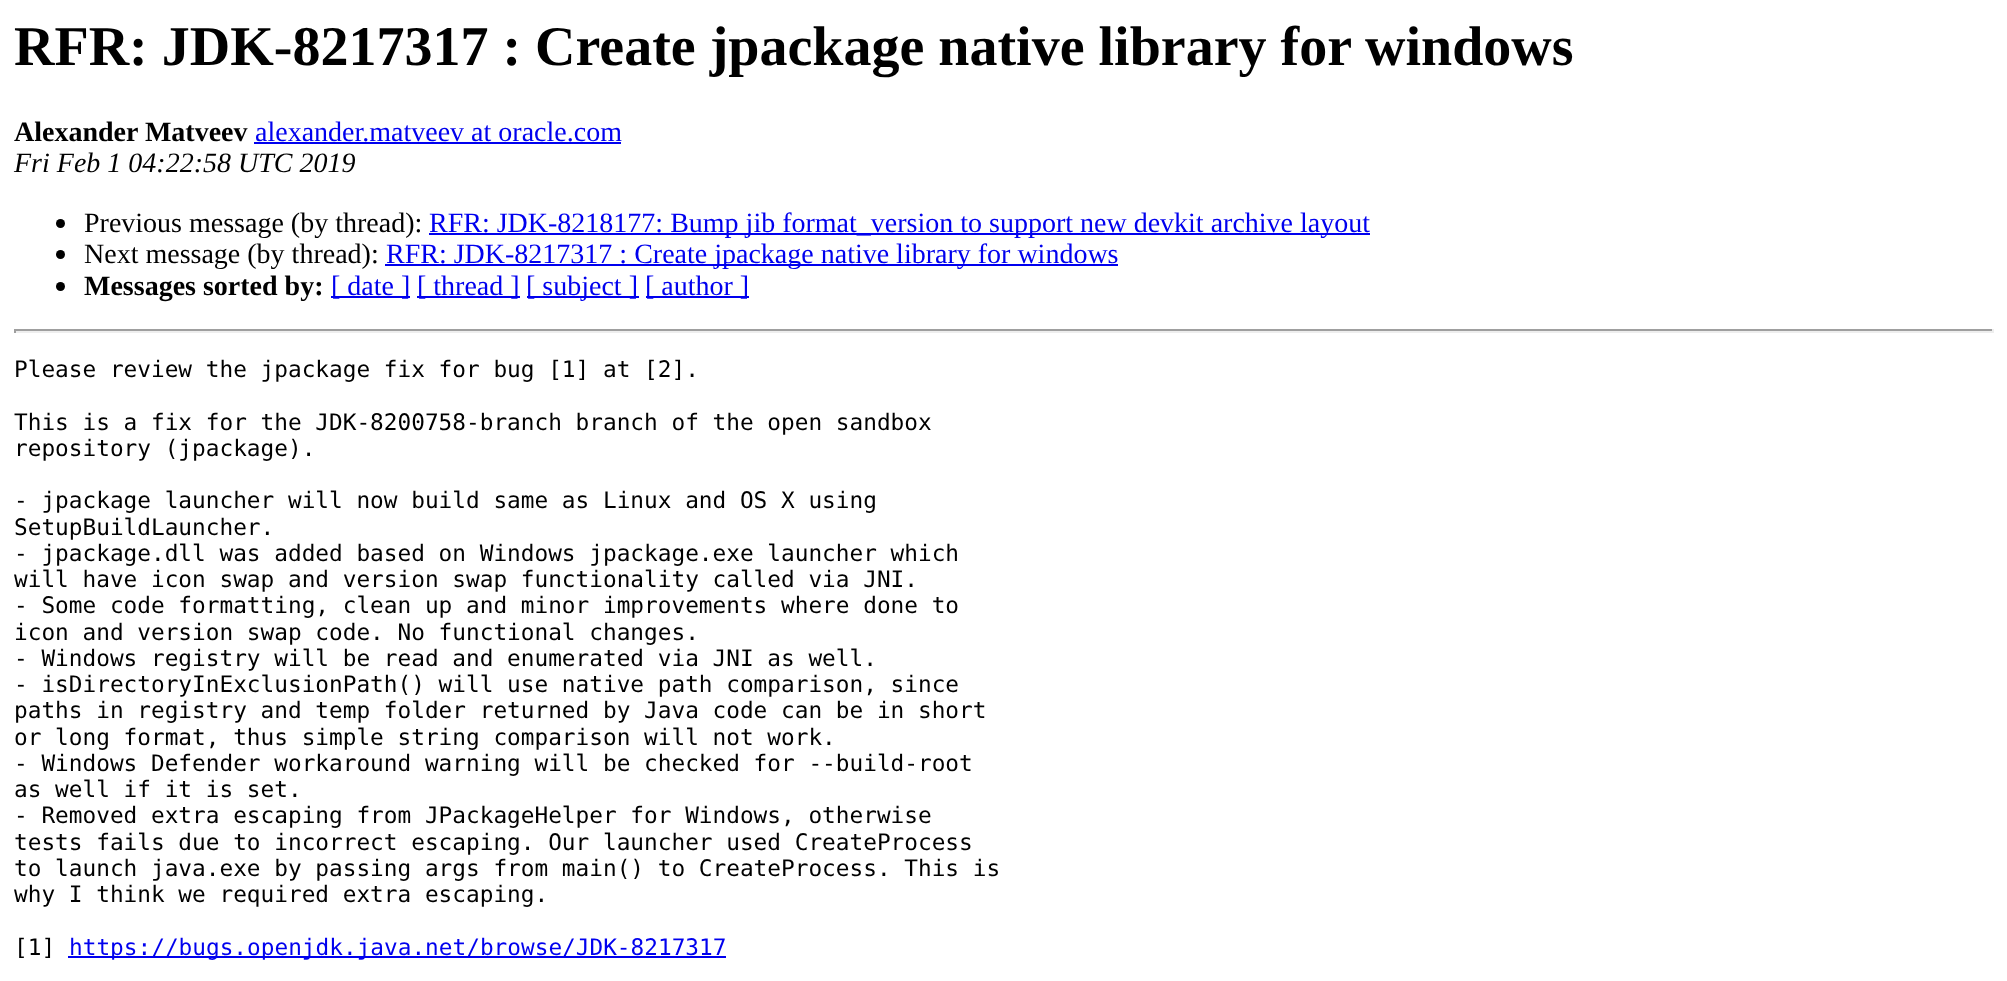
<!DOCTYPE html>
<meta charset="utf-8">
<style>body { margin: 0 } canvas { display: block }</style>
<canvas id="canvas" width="2007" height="981"></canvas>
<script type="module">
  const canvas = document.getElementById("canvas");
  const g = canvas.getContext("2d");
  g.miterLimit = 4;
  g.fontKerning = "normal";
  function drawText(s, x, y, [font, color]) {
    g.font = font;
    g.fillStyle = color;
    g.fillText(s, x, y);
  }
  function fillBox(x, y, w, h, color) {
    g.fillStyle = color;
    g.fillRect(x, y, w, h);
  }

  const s1 = ["bold 56px Liberation Serif", "#000000"];
  const s2 = ["bold 28px Liberation Serif", "#000000"];
  const s3 = ["28px Liberation Serif", "#0000EE"];
  const s4 = ["italic 28px Liberation Serif", "#000000"];
  const s5 = ["28px Liberation Serif", "#000000"];
  const s6 = ["22.75px DejaVu Sans Mono", "#000000"];
  const s7 = ["22.75px DejaVu Sans Mono", "#0000EE"];

  fillBox(0, 0, 2007, 981, "#FFFFFF");
  drawText("RFR: JDK-8217317 : Create jpackage native library for windows", 14, 65, s1);
  drawText("Alexander Matveev", 14, 141, s2);
  drawText("alexander.matveev at oracle.com", 255, 141, s3);
  fillBox(254, 142, 367, 2, "#0000EE");
  drawText("Fri Feb 1 04:22:58 UTC 2019", 14, 172, s4);
  g.beginPath();
  g.arc(60.5, 223.5, 4.5, 0, Math.PI * 2);
  g.fill();
  drawText("Previous message (by thread):", 84, 232, s5);
  fillBox(429, 233, 941, 2, "#0000EE");
  drawText("RFR: JDK-8218177: Bump jib format_version to support new devkit archive layout", 429, 232, s3);
  g.fillStyle = "#000000";
  g.beginPath();
  g.arc(60.5, 254.5, 4.5, 0, Math.PI * 2);
  g.fill();
  drawText("Next message (by thread):", 84, 263, s5);
  fillBox(385, 264, 733, 2, "#0000EE");
  drawText("RFR: JDK-8217317 : Create jpackage native library for windows", 386, 263, s3);
  g.fillStyle = "#000000";
  g.beginPath();
  g.arc(60.5, 286.5, 4.5, 0, Math.PI * 2);
  g.fill();
  drawText("Messages sorted by:", 84, 295, s2);
  fillBox(331, 296, 79, 2, "#0000EE");
  drawText("[ date ]", 331, 295, s3);
  fillBox(417, 296, 103, 2, "#0000EE");
  drawText("[ thread ]", 417, 295, s3);
  fillBox(527, 296, 112, 2, "#0000EE");
  drawText("[ subject ]", 526, 295, s3);
  fillBox(646, 296, 103, 2, "#0000EE");
  drawText("[ author ]", 645, 295, s3);
  fillBox(14, 329, 1979, 2, "#9F9F9F");
  fillBox(1992, 329, 2, 4, "#EEEEEE");
  fillBox(14, 331, 1979, 2, "#EEEEEE");
  fillBox(14, 329, 2, 4, "#9F9F9F");
  drawText("Please review the jpackage fix for bug [1] at [2].", 14, 377, s6);
  drawText("This is a fix for the JDK-8200758-branch branch of the open sandbox", 14, 430, s6);
  drawText("repository (jpackage).", 14, 456, s6);
  drawText("- jpackage launcher will now build same as Linux and OS X using", 14, 508, s6);
  drawText("SetupBuildLauncher.", 14, 535, s6);
  drawText("- jpackage.dll was added based on Windows jpackage.exe launcher which", 14, 561, s6);
  drawText("will have icon swap and version swap functionality called via JNI.", 14, 587, s6);
  drawText("- Some code formatting, clean up and minor improvements where done to", 14, 613, s6);
  drawText("icon and version swap code. No functional changes.", 14, 640, s6);
  drawText("- Windows registry will be read and enumerated via JNI as well.", 14, 666, s6);
  drawText("- isDirectoryInExclusionPath() will use native path comparison, since", 14, 692, s6);
  drawText("paths in registry and temp folder returned by Java code can be in short", 14, 718, s6);
  drawText("or long format, thus simple string comparison will not work.", 14, 745, s6);
  drawText("- Windows Defender workaround warning will be checked for --build-root", 14, 771, s6);
  drawText("as well if it is set.", 14, 797, s6);
  drawText("- Removed extra escaping from JPackageHelper for Windows, otherwise", 14, 823, s6);
  drawText("tests fails due to incorrect escaping. Our launcher used CreateProcess", 14, 850, s6);
  drawText("to launch java.exe by passing args from main() to CreateProcess. This is", 14, 876, s6);
  drawText("why I think we required extra escaping.", 14, 902, s6);
  drawText("[1]", 14, 955, s6);
  fillBox(68, 956, 658, 2, "#0000EE");
  drawText("https://bugs.openjdk.java.net/browse/JDK-8217317", 69, 955, s7);
</script>
